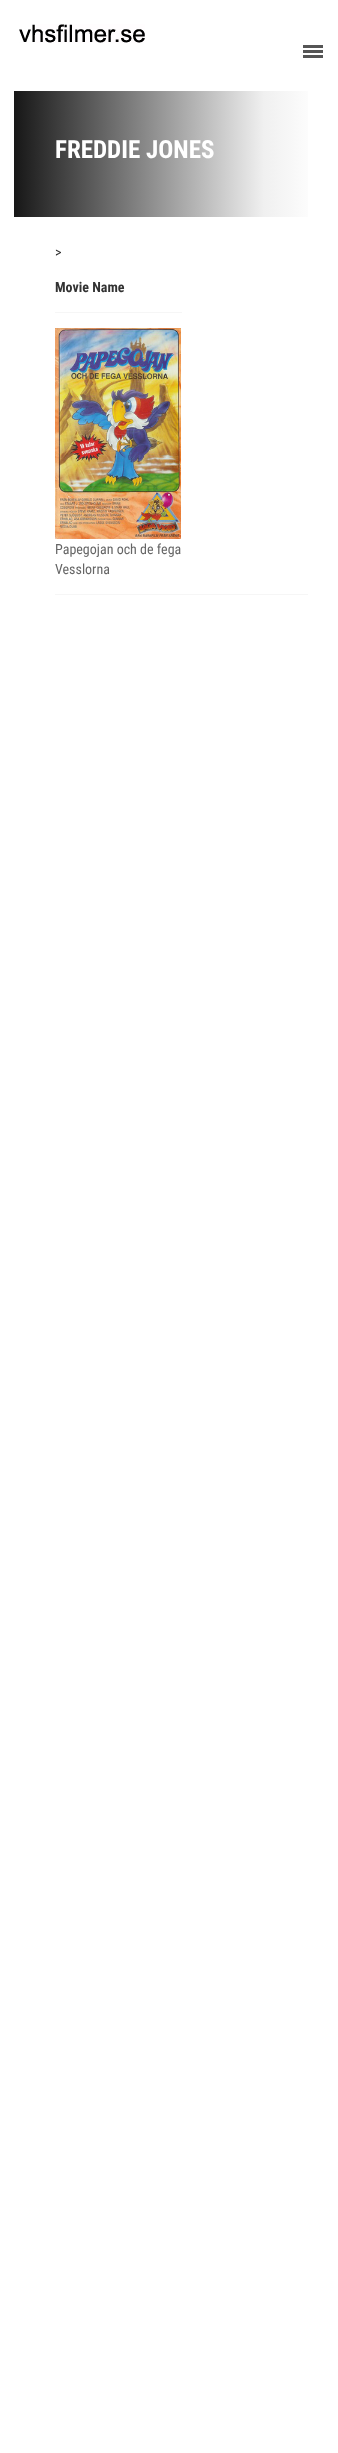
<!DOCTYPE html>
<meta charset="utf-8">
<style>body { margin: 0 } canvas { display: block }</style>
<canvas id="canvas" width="338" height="2453"></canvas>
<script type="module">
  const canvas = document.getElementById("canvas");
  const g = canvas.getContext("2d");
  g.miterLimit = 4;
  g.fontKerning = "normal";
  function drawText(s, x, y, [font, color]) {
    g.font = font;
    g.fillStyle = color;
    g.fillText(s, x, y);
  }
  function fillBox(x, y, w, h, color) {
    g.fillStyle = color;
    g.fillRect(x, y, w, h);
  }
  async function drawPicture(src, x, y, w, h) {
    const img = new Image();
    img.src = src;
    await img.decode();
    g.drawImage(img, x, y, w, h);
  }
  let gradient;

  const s1 = ["bold 25px Roboto Condensed", "#FFFFFF"];
  const s2 = ["14px Roboto Condensed", "#333333"];
  const s3 = ["bold 14px Roboto Condensed", "#333333"];
  const s4 = ["14px Roboto Condensed", "#666666"];

  fillBox(0, 0, 338, 2453, "#FFFFFF");
  await drawPicture("pic1.png", 19, 24, 126, 19);
  fillBox(303, 50, 20, 3, "#555555");
  fillBox(303, 45, 20, 3, "#555555");
  fillBox(303, 55, 20, 3, "#555555");
  gradient = g.createLinearGradient(14, 154, 308, 154);
  gradient.addColorStop(0, "#171717");
  gradient.addColorStop(0.85, "#F0F0F0");
  gradient.addColorStop(1, "#FCFCFC");
  g.fillStyle = gradient;
  g.fillRect(14, 91, 294, 126);
  drawText("FREDDIE JONES", 55, 158, s1);
  drawText(">", 55, 257, s2);
  fillBox(55, 312, 127, 1, "#F6F6F6");
  drawText("Movie Name", 55, 292, s3);
  fillBox(55, 594, 253, 1, "#F6F6F6");
  await drawPicture("pic2.png", 55, 328, 126, 211);
  drawText("Papegojan och de fega", 55, 554, s4);
  drawText("Vesslorna", 55, 574, s4);
</script>
